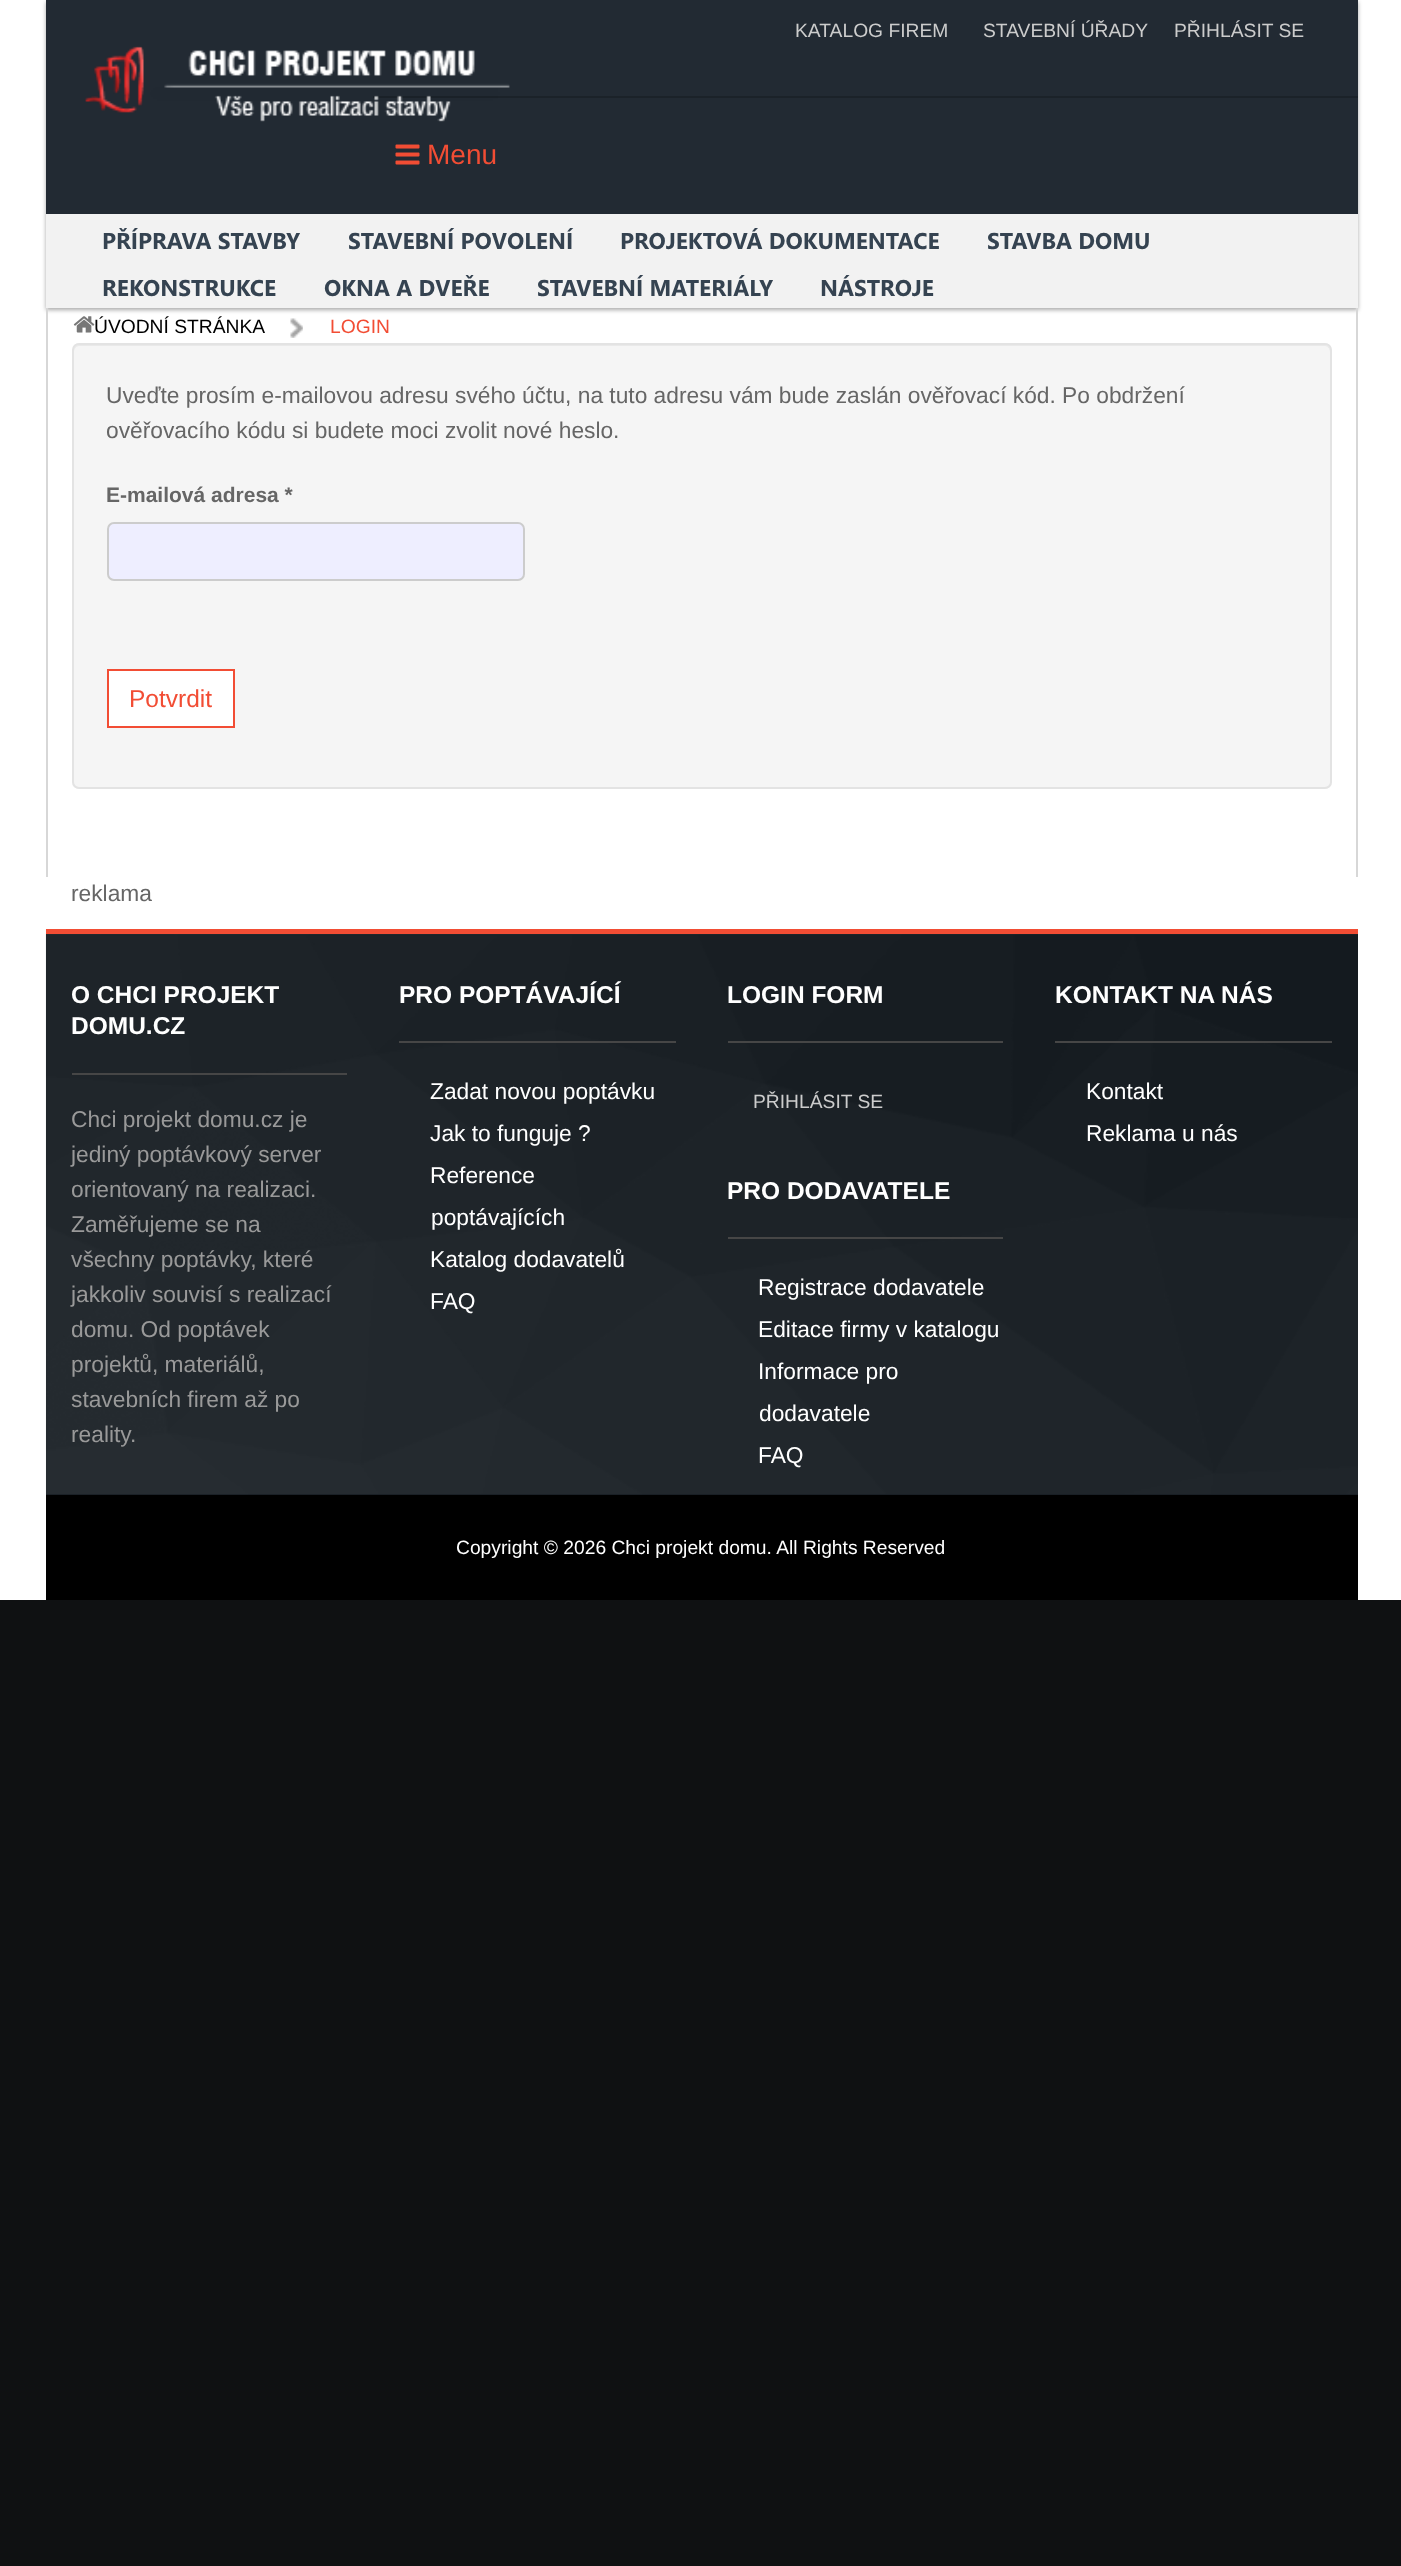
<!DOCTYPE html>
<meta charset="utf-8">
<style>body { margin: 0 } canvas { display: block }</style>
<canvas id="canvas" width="1401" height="2566"></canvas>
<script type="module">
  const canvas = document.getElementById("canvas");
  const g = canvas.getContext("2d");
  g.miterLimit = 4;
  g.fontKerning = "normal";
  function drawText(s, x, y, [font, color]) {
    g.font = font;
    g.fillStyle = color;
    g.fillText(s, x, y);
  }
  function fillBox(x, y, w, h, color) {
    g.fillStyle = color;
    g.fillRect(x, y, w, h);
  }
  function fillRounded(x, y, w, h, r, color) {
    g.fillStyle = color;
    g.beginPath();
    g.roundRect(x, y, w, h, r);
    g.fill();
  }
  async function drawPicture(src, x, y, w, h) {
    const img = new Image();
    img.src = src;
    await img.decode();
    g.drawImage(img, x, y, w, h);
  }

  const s1 = ["19.25px Liberation Sans", "#CCCCCC"];
  const s2 = ["28px Liberation Sans", "#F24D34"];
  const s3 = ["bold 22.75px Segoe UI", "#354351"];
  const s4 = ["19.25px Liberation Sans", "#000000"];
  const s5 = ["19.25px Liberation Sans", "#F24D34"];
  const s6 = ["22.75px Liberation Sans", "#666666"];
  const s7 = ["bold 21px Liberation Sans", "#666666"];
  const s8 = ["24.5px Liberation Sans", "#F24D34"];
  const s9 = ["bold 24.5px Liberation Sans", "#FFFFFF"];
  const s10 = ["22.75px Liberation Sans", "#999999"];
  const s11 = ["22.75px Liberation Sans", "#FFFFFF"];
  const s12 = ["19.25px Liberation Sans", "#FFFFFF"];

  fillBox(0, 0, 1401, 2566, "#0F1112");
  fillBox(0, 0, 1401, 1600, "#FFFFFF");
  g.fillStyle = "rgba(0, 0, 0, 0.34)";
  g.filter = "blur(2px)";
  g.beginPath();
  g.rect(46, 2, 1312, 308);
  g.fill();
  g.filter = "none";
  fillBox(46, 0, 1312, 214, "#222A33");
  drawText("KATALOG FIREM", 795, 37, s1);
  drawText("STAVEBNÍ ÚŘADY", 983, 37, s1);
  drawText("PŘIHLÁSIT SE", 1174, 37, s1);
  fillBox(373, 96, 985, 2, "#1B2229");
  await drawPicture("pic1.png", 85, 46, 425, 76);
  await drawPicture("pic2.png", 395, 144, 25, 21);
  drawText("Menu", 427, 164, s2);
  fillBox(46, 214, 1312, 94, "#F2F2F2");
  drawText("PŘÍPRAVA STAVBY", 102, 249, s3);
  drawText("STAVEBNÍ POVOLENÍ", 348, 249, s3);
  drawText("PROJEKTOVÁ DOKUMENTACE", 620, 249, s3);
  drawText("STAVBA DOMU", 987, 249, s3);
  drawText("REKONSTRUKCE", 102, 296, s3);
  drawText("OKNA A DVEŘE", 324, 296, s3);
  drawText("STAVEBNÍ MATERIÁLY", 537, 296, s3);
  drawText("NÁSTROJE", 820, 296, s3);
  await drawPicture("pic3.png", 73, 316, 22, 17);
  drawText("ÚVODNÍ STRÁNKA", 94, 333, s4);
  await drawPicture("pic4.png", 290, 318, 13, 20);
  drawText("LOGIN", 330, 333, s5);
  fillBox(46, 308, 2, 569, "#D7D7D7");
  fillRounded(72, 343, 1260, 446, 7, "#F5F5F5");
  g.fillStyle = "#E9E9E9";
  g.beginPath();
  g.moveTo(79, 346);
  g.lineTo(1325, 346);
  g.bezierCurveTo(1328, 346, 1330, 349, 1330, 352);
  g.lineTo(1330, 350);
  g.bezierCurveTo(1330, 347, 1328, 345, 1325, 345);
  g.lineTo(79, 345);
  g.bezierCurveTo(76, 345, 74, 347, 74, 350);
  g.lineTo(74, 352);
  g.bezierCurveTo(74, 349, 76, 346, 79, 346);
  g.closePath();
  g.fill();
  g.beginPath();
  g.roundRect(73, 344, 1258, 444, 6);
  g.strokeStyle = "#E3E3E3";
  g.lineWidth = 2;
  g.stroke();
  drawText("Uveďte prosím e-mailovou adresu svého účtu, na tuto adresu vám bude zaslán ověřovací kód. Po obdržení", 106, 403, s6);
  drawText("ověřovacího kódu si budete moci zvolit nové heslo.", 106, 438, s6);
  drawText("E-mailová adresa *", 106, 502, s7);
  g.fillStyle = "#EEEEFF";
  g.beginPath();
  g.roundRect(108, 523, 416, 57, 6);
  g.fill();
  g.strokeStyle = "#CCCCCC";
  g.stroke();
  g.fillStyle = "#FFFFFF";
  g.beginPath();
  g.rect(108, 670, 126, 57);
  g.fill();
  g.strokeStyle = "#F24D34";
  g.stroke();
  drawText("Potvrdit", 129, 707, s8);
  fillBox(1356, 308, 2, 569, "#D7D7D7");
  drawText("reklama", 71, 901, s6);
  fillBox(46, 934, 1312, 561, "#171D23");
  await drawPicture("pic5.png", 45, 929, 1313, 566);
  fillBox(46, 929, 1312, 5, "#F24D34");
  fillBox(72, 1073, 275, 2, "#464646");
  drawText("O CHCI PROJEKT", 71, 1003, s9);
  drawText("DOMU.CZ", 71, 1034, s9);
  drawText("Chci projekt domu.cz je", 71, 1127, s10);
  drawText("jediný poptávkový server", 71, 1162, s10);
  drawText("orientovaný na realizaci.", 71, 1197, s10);
  drawText("Zaměřujeme se na", 71, 1232, s10);
  drawText("všechny poptávky, které", 71, 1267, s10);
  drawText("jakkoliv souvisí s realizací", 71, 1302, s10);
  drawText("domu. Od poptávek", 71, 1337, s10);
  drawText("projektů, materiálů,", 71, 1372, s10);
  drawText("stavebních firem až po", 71, 1407, s10);
  drawText("reality.", 71, 1442, s10);
  fillBox(399, 1041, 277, 2, "#464646");
  drawText("PRO POPTÁVAJÍCÍ", 399, 1003, s9);
  drawText("Zadat novou poptávku", 430, 1099, s11);
  drawText("Jak to funguje ?", 430, 1141, s11);
  drawText("Reference", 430, 1183, s11);
  drawText("poptávajících", 431, 1225, s11);
  drawText("Katalog dodavatelů", 430, 1267, s11);
  drawText("FAQ", 430, 1309, s11);
  fillBox(728, 1041, 275, 2, "#464646");
  drawText("LOGIN FORM", 727, 1003, s9);
  drawText("PŘIHLÁSIT SE", 753, 1108, s1);
  fillBox(728, 1237, 275, 2, "#464646");
  drawText("PRO DODAVATELE", 727, 1199, s9);
  drawText("Registrace dodavatele", 758, 1295, s11);
  drawText("Editace firmy v katalogu", 758, 1337, s11);
  drawText("Informace pro", 758, 1379, s11);
  drawText("dodavatele", 759, 1421, s11);
  drawText("FAQ", 758, 1463, s11);
  fillBox(1055, 1041, 277, 2, "#464646");
  drawText("KONTAKT NA NÁS", 1055, 1003, s9);
  drawText("Kontakt", 1086, 1099, s11);
  drawText("Reklama u nás", 1086, 1141, s11);
  fillBox(46, 1495, 1312, 105, "#000000");
  drawText("Copyright © 2026 Chci projekt domu. All Rights Reserved", 456, 1554, s12);
</script>
